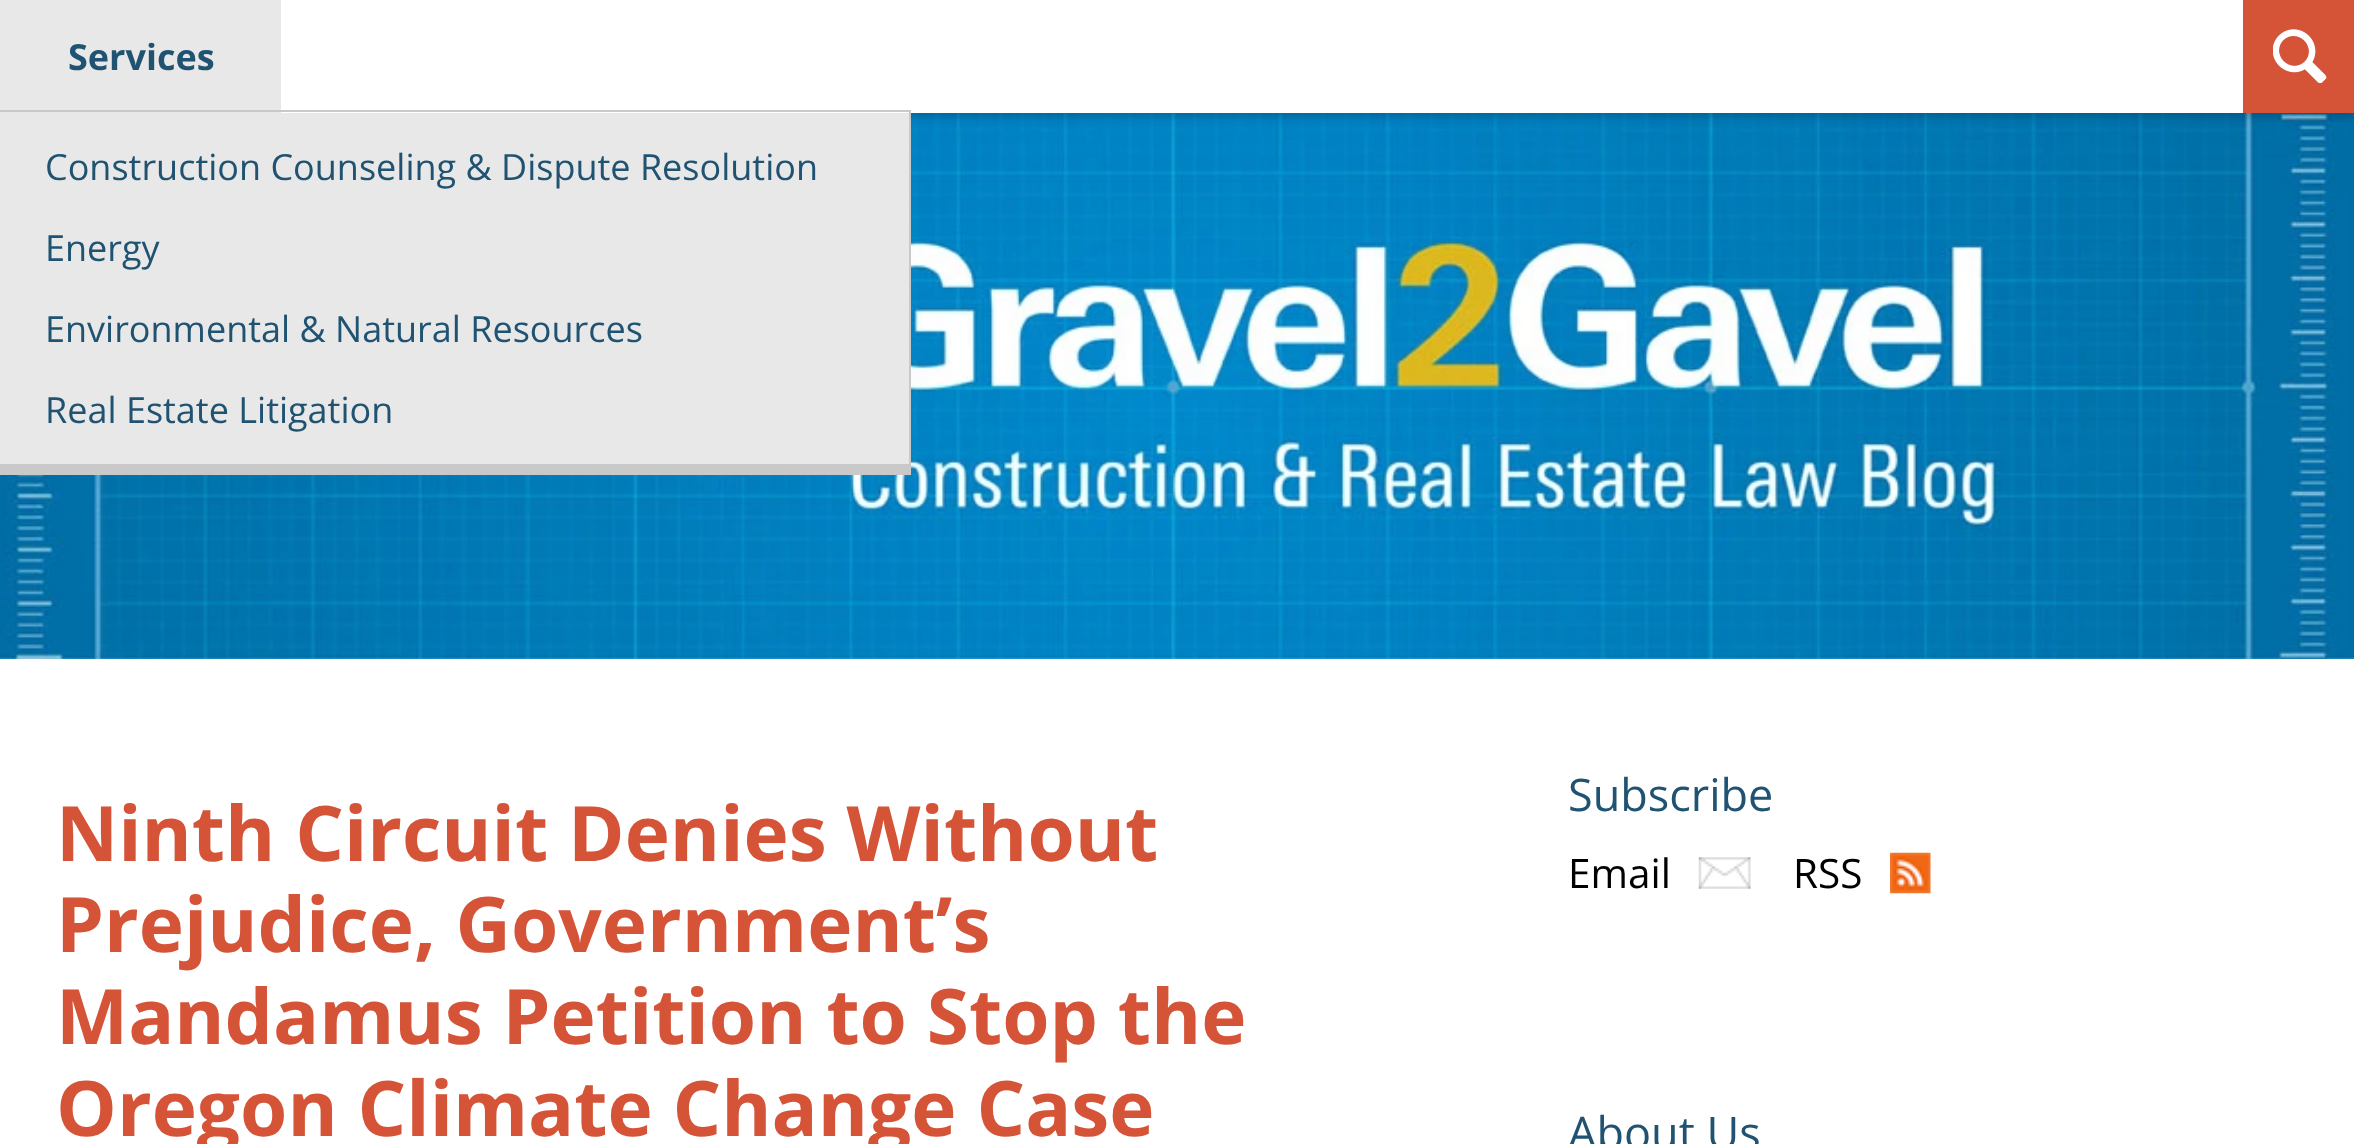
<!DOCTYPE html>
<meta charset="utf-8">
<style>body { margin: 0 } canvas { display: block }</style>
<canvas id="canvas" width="2354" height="1144"></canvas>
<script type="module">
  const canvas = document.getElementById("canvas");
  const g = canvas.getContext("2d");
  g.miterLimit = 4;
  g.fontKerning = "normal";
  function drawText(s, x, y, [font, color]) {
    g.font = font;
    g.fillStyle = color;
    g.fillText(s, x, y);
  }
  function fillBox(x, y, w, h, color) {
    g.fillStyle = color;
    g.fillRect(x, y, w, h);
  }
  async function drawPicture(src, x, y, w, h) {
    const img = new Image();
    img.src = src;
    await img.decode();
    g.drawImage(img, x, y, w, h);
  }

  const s1 = ["bold 36px Open Sans", "#205372"];
  const s2 = ["36px Open Sans", "#205372"];
  const s3 = ["bold 76.5px Open Sans", "#D55337"];
  const s4 = ["45px Open Sans", "#205372"];
  const s5 = ["40.5px Open Sans", "#000000"];

  fillBox(0, 0, 2354, 1144, "#FFFFFF");
  await drawPicture("pic2.png", 0, 113, 2354, 546);
  g.fillStyle = "rgba(0, 0, 0, 0.26)";
  g.filter = "blur(5.5px)";
  g.beginPath();
  g.rect(0, 2, 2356, 113);
  g.fill();
  g.filter = "none";
  fillBox(281, 0, 1962, 113, "#FFFFFF");
  fillBox(0, 0, 281, 113, "#E8E8E8");
  drawText("Services", 68, 70, s1);
  g.strokeStyle = "#C9C9C9";
  g.lineWidth = 2;
  g.strokeRect(-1, 111, 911, 363);
  fillBox(0, 113, 909, 351, "#E8E8E8");
  fillBox(0, 464, 909, 9, "#C9C9C9");
  drawText("Construction Counseling & Dispute Resolution", 45, 180, s2);
  drawText("Energy", 45, 261, s2);
  drawText("Environmental & Natural Resources", 45, 342, s2);
  drawText("Real Estate Litigation", 45, 423, s2);
  fillBox(2243, 0, 111, 113, "#D55337");
  await drawPicture("pic1.png", 2273, 29, 54, 54);
  drawText("Ninth Circuit Denies Without", 56, 861, s3);
  drawText("Prejudice, Government’s", 56, 952, s3);
  drawText("Mandamus Petition to Stop the", 56, 1044, s3);
  drawText("Oregon Climate Change Case", 56, 1136, s3);
  drawText("Subscribe", 1568, 811, s4);
  drawText("Email", 1568, 888, s5);
  await drawPicture("pic3.png", 1698, 857, 53, 32);
  drawText("RSS", 1793, 888, s5);
  await drawPicture("pic4.png", 1890, 852, 41, 42);
  drawText("About Us", 1568, 1149, s4);
</script>
